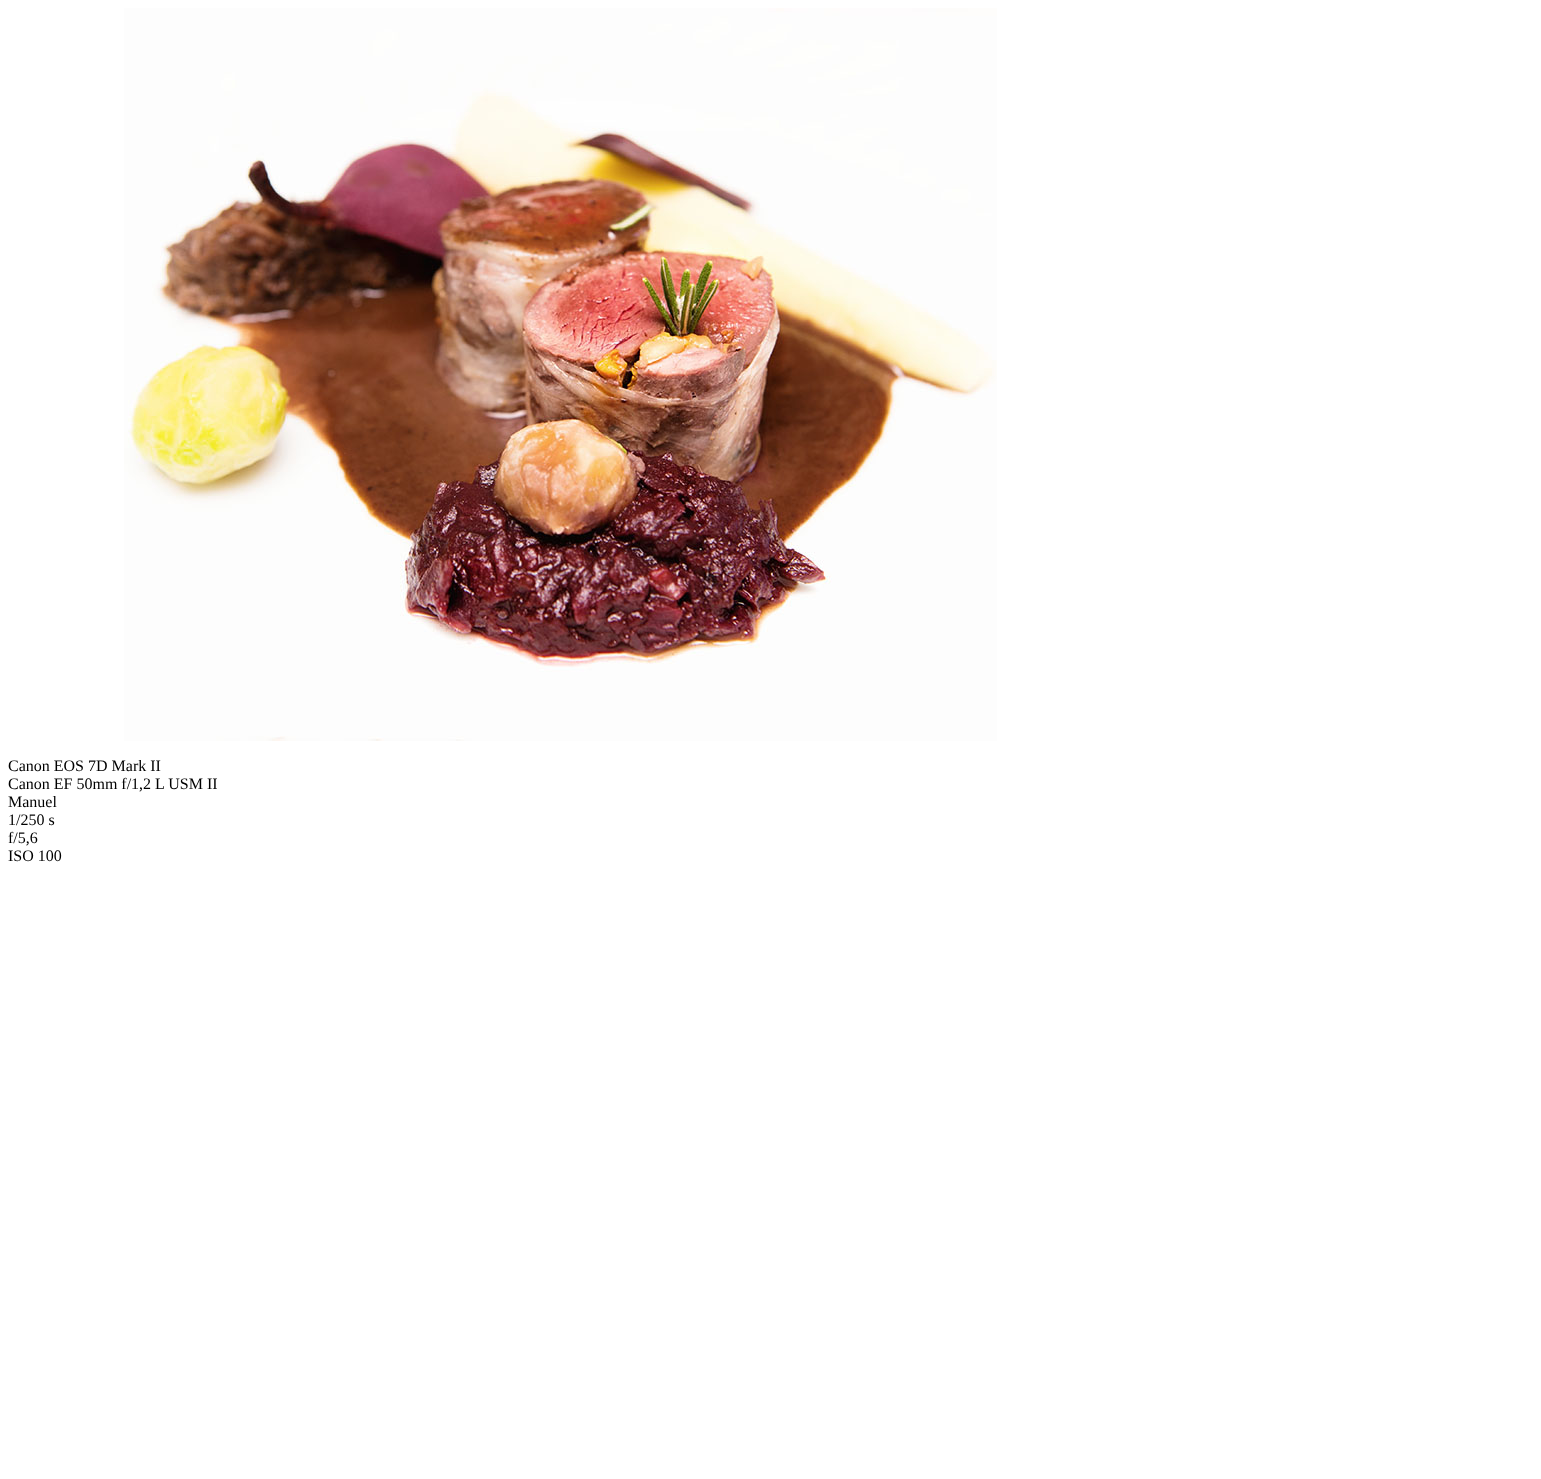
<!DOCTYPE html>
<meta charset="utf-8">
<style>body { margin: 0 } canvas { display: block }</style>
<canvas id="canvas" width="1541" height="1479"></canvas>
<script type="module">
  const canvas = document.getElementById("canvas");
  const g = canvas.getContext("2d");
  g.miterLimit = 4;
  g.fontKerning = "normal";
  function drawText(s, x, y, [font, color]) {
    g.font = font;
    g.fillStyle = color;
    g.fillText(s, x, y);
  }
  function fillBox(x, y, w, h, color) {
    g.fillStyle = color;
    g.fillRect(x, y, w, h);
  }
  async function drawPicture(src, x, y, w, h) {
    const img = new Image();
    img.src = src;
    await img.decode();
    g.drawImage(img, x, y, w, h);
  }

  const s1 = ["16px Liberation Serif", "#000000"];

  fillBox(0, 0, 1541, 1479, "#FFFFFF");
  await drawPicture("pic1.png", 124, 8, 873, 733);
  drawText("Canon EOS 7D Mark II", 8, 771, s1);
  drawText("Canon EF 50mm f/1,2 L USM II", 8, 789, s1);
  drawText("Manuel", 8, 807, s1);
  drawText("1/250 s", 8, 825, s1);
  drawText("f/5,6", 8, 843, s1);
  drawText("ISO 100", 8, 861, s1);
</script>
